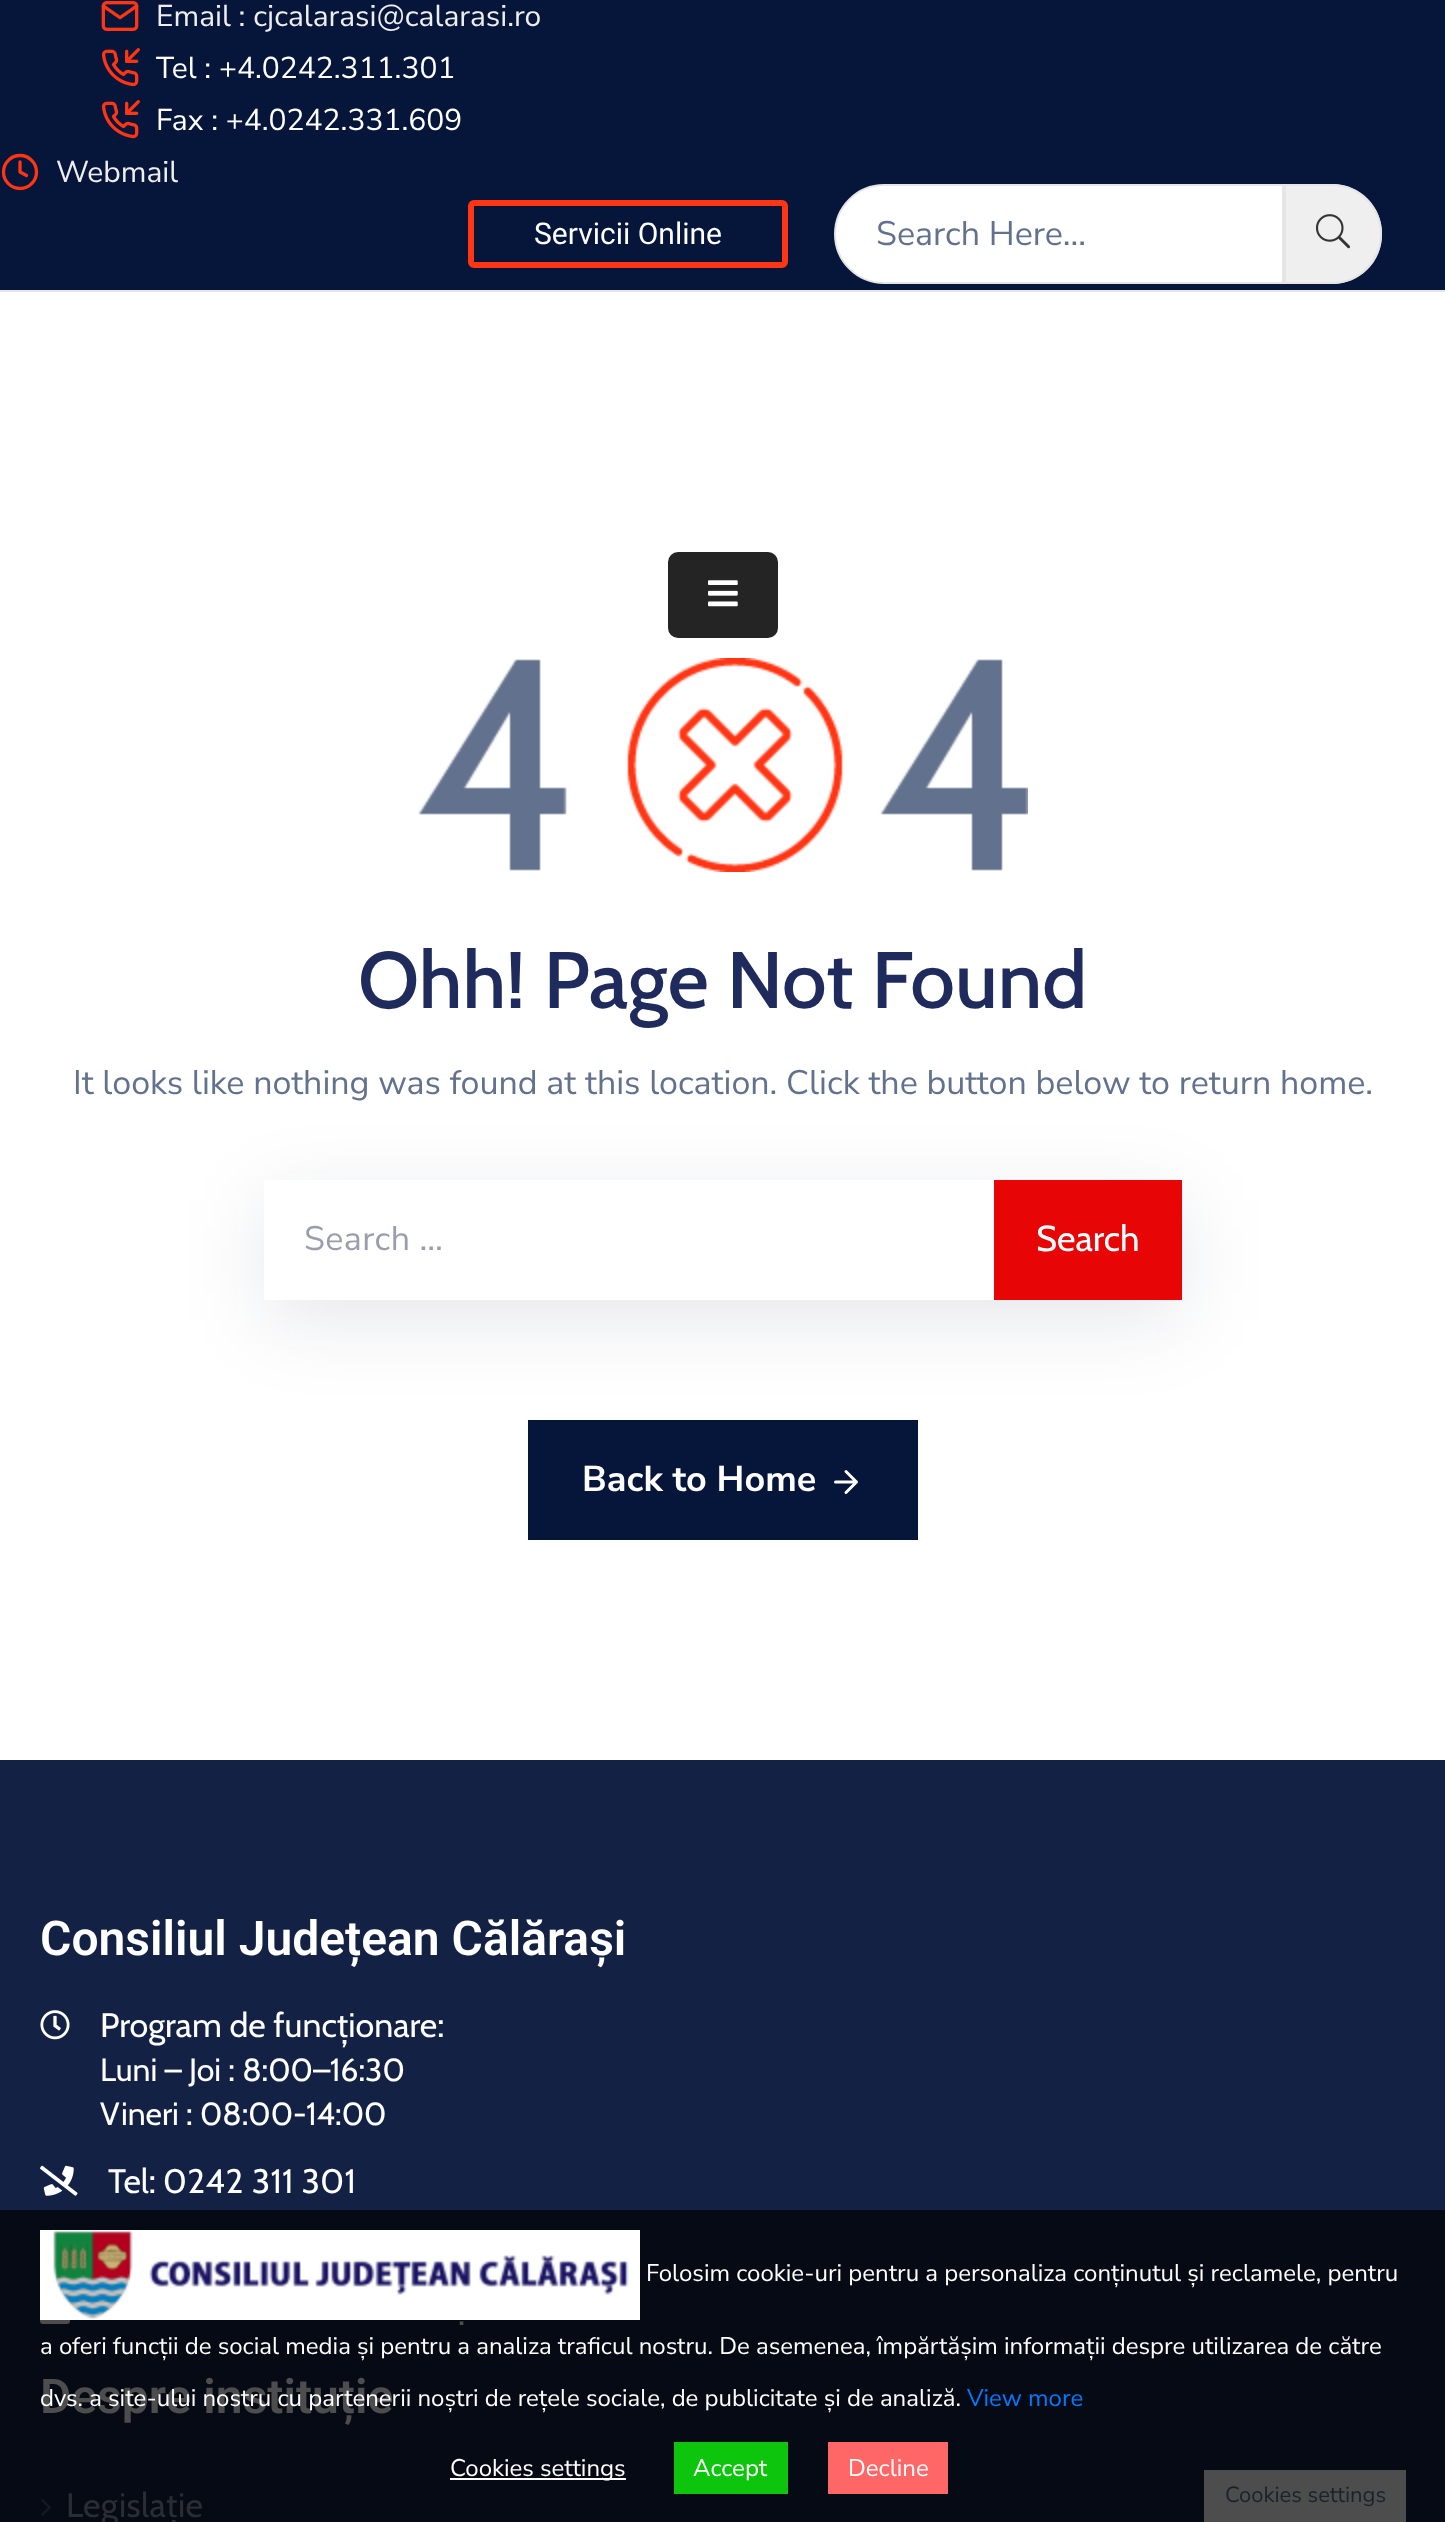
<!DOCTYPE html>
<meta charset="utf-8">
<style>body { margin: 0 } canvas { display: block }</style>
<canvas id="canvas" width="1445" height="2522"></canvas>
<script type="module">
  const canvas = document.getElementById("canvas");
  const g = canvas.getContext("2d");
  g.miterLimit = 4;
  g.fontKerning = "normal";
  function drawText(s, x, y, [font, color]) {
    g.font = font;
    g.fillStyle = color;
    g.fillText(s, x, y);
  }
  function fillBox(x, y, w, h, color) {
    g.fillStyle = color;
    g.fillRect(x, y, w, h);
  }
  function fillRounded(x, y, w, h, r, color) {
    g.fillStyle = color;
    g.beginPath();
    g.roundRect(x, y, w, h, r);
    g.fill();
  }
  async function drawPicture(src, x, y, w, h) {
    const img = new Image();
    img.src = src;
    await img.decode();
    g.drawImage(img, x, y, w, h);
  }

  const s1 = ["30px Nunito Sans", "#EEEEEE"];
  const s2 = ["30px Nunito Sans", "#FFFFFF"];
  const s3 = ["30px Roboto", "#FFFFFF"];
  const s4 = ["34px Nunito Sans", "#62718D"];
  const s5 = ["500 80px Cabin", "#202B5D"];
  const s6 = ["34px Nunito Sans", "#999EAC"];
  const s7 = ["36px Cabin", "#FFFFFF"];
  const s8 = ["bold 36px Nunito Sans", "#FFFFFF"];
  const s9 = ["600 48px Roboto", "#FFFFFF"];
  const s10 = ["34px Cabin", "#FFFFFF"];
  const s11 = ["32px Cabin", "#FFFFFF"];
  const s12 = ["34px Cabin", "#4D4D4D"];
  const s13 = ["600 48px Roboto", "#4D4D4D"];
  const s14 = ["34px Cabin", "#2A2D34"];
  const s15 = ["24px Nunito Sans", "#FFFFFF"];
  const s16 = ["24px Nunito Sans", "#007BFF"];
  const s17 = ["22px Nunito Sans", "#1D222A"];

  fillBox(0, 0, 1445, 2522, "#FFFFFF");
  fillBox(0, 0, 1445, 290, "#06163A");
  fillBox(0, 290, 1445, 2, "#E5E5E5");
  await drawPicture("pic1.png", 101, 1, 38, 30);
  drawText("Email : cjcalarasi@calarasi.ro", 156, 26, s1);
  await drawPicture("pic2.png", 101, 48, 39, 39);
  drawText("Tel : +4.0242.311.301", 156, 78, s2);
  await drawPicture("pic2.png", 101, 100, 39, 39);
  drawText("Fax : +4.0242.331.609", 156, 130, s2);
  g.beginPath();
  g.arc(20, 172, 16.5, 0, Math.PI * 2);
  g.strokeStyle = "#FF3514";
  g.lineWidth = 3.3;
  g.stroke();
  g.beginPath();
  g.moveTo(20, 162);
  g.lineTo(20, 172);
  g.lineTo(26.5, 175.5);
  g.lineCap = "round";
  g.lineJoin = "round";
  g.stroke();
  drawText("Webmail", 56, 182, s1);
  g.beginPath();
  g.roundRect(471, 203, 314, 62, 3);
  g.lineWidth = 6;
  g.lineJoin = "miter";
  g.stroke();
  drawText("Servicii Online", 534, 244, s3);
  g.beginPath();
  g.roundRect(835, 185, 448, 98, [49, 0, 0, 49]);
  g.fill();
  g.strokeStyle = "#E5E5E5";
  g.lineWidth = 2;
  g.stroke();
  drawText("Search Here...", 876, 245, s4);
  g.fillStyle = "#EFEFEF";
  g.beginPath();
  g.moveTo(1332, 184);
  g.lineTo(1284, 184);
  g.lineTo(1284, 284);
  g.lineTo(1332, 284);
  g.bezierCurveTo(1360, 284, 1382, 262, 1382, 234);
  g.bezierCurveTo(1382, 206, 1360, 184, 1332, 184);
  g.closePath();
  g.fill();
  g.beginPath();
  g.moveTo(1332, 185);
  g.lineTo(1285, 185);
  g.lineTo(1285, 283);
  g.lineTo(1332, 283);
  g.bezierCurveTo(1359, 283, 1381, 261, 1381, 234);
  g.bezierCurveTo(1381, 207, 1359, 185, 1332, 185);
  g.closePath();
  g.lineCap = "butt";
  g.stroke();
  await drawPicture("pic3.png", 1315, 214, 35, 35);
  fillRounded(668, 552, 110, 86, 10, "#242424");
  await drawPicture("pic4.png", 708, 580, 30, 27);
  await drawPicture("pic5.png", 418, 658, 610, 214);
  drawText("Ohh! Page Not Found", 358, 1008, s5);
  drawText("It looks like nothing was found at this location. Click the button below to return home.", 73, 1094, s4);
  g.save();
  g.beginPath();
  g.moveTo(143, 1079);
  g.lineTo(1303, 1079);
  g.lineTo(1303, 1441);
  g.lineTo(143, 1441);
  g.closePath();
  g.moveTo(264, 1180);
  g.lineTo(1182, 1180);
  g.lineTo(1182, 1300);
  g.lineTo(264, 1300);
  g.closePath();
  g.clip("evenodd");
  g.fillStyle = "rgba(6, 22, 58, 0.1)";
  g.filter = "blur(40px)";
  g.beginPath();
  g.rect(264, 1200, 918, 120);
  g.fill();
  g.filter = "none";
  g.restore();
  g.letterSpacing = "0.4px";
  drawText("Search …", 304, 1250, s6);
  fillBox(994, 1180, 188, 120, "#E70506");
  g.letterSpacing = "0px";
  drawText("Search", 1036, 1251, s7);
  fillBox(528, 1420, 390, 120, "#06163A");
  drawText("Back to Home", 582, 1491, s8);
  g.beginPath();
  g.moveTo(835.5, 1482);
  g.lineTo(856.5, 1482);
  g.moveTo(846, 1471.5);
  g.lineTo(856.5, 1482);
  g.lineTo(846, 1492.5);
  g.strokeStyle = "#FFFFFF";
  g.lineWidth = 3;
  g.lineCap = "round";
  g.lineJoin = "round";
  g.stroke();
  fillBox(0, 1760, 1445, 450, "#132244");
  fillBox(0, 2210, 1445, 312, "#060A14");
  drawText("Consiliul Județean Călărași", 40, 1955, s9);
  await drawPicture("pic6.png", 40, 2010, 30, 30);
  drawText("Program de funcționare:", 100, 2037, s10);
  drawText("Luni – Joi : 8:00–16:30", 100, 2081, s11);
  drawText("Vineri : 08:00-14:00", 100, 2125, s11);
  await drawPicture("pic7.png", 40, 2165, 38, 31);
  drawText("Tel:", 108, 2193, s10);
  g.letterSpacing = "0.4px";
  drawText("0242 311 301", 163, 2193, s10);
  await drawPicture("pic8.png", 40, 2320, 30, 4);
  drawText(".", 458, 2325, s12);
  g.letterSpacing = "0px";
  drawText("Despre instituție", 40, 2413, s13);
  await drawPicture("pic9.png", 41, 2499, 10, 17);
  g.letterSpacing = "0.4px";
  drawText("Legislație", 66, 2517, s14);
  await drawPicture("pic10.png", 40, 2230, 600, 90);
  g.letterSpacing = "0px";
  drawText("Folosim cookie-uri pentru a personaliza conținutul și reclamele, pentru", 646, 2281, s15);
  drawText("a oferi funcții de social media și pentru a analiza traficul nostru. De asemenea, împărtășim informații despre utilizarea de către", 40, 2354, s15);
  drawText("dvs. a site-ului nostru cu partenerii noștri de rețele sociale, de publicitate și de analiză.", 40, 2406, s15);
  drawText("View more", 967, 2406, s16);
  fillBox(450, 2478, 176, 2, "#FFFFFF");
  drawText("Cookies settings", 450, 2476, s15);
  fillBox(674, 2442, 114, 52, "#0EC50E");
  drawText("Accept", 693, 2476, s15);
  fillBox(828, 2442, 120, 52, "#FF6666");
  drawText("Decline", 848, 2476, s15);
  fillBox(1204, 2470, 202, 52, "#4D4D4D");
  drawText("Cookies settings", 1225, 2502, s17);
</script>
